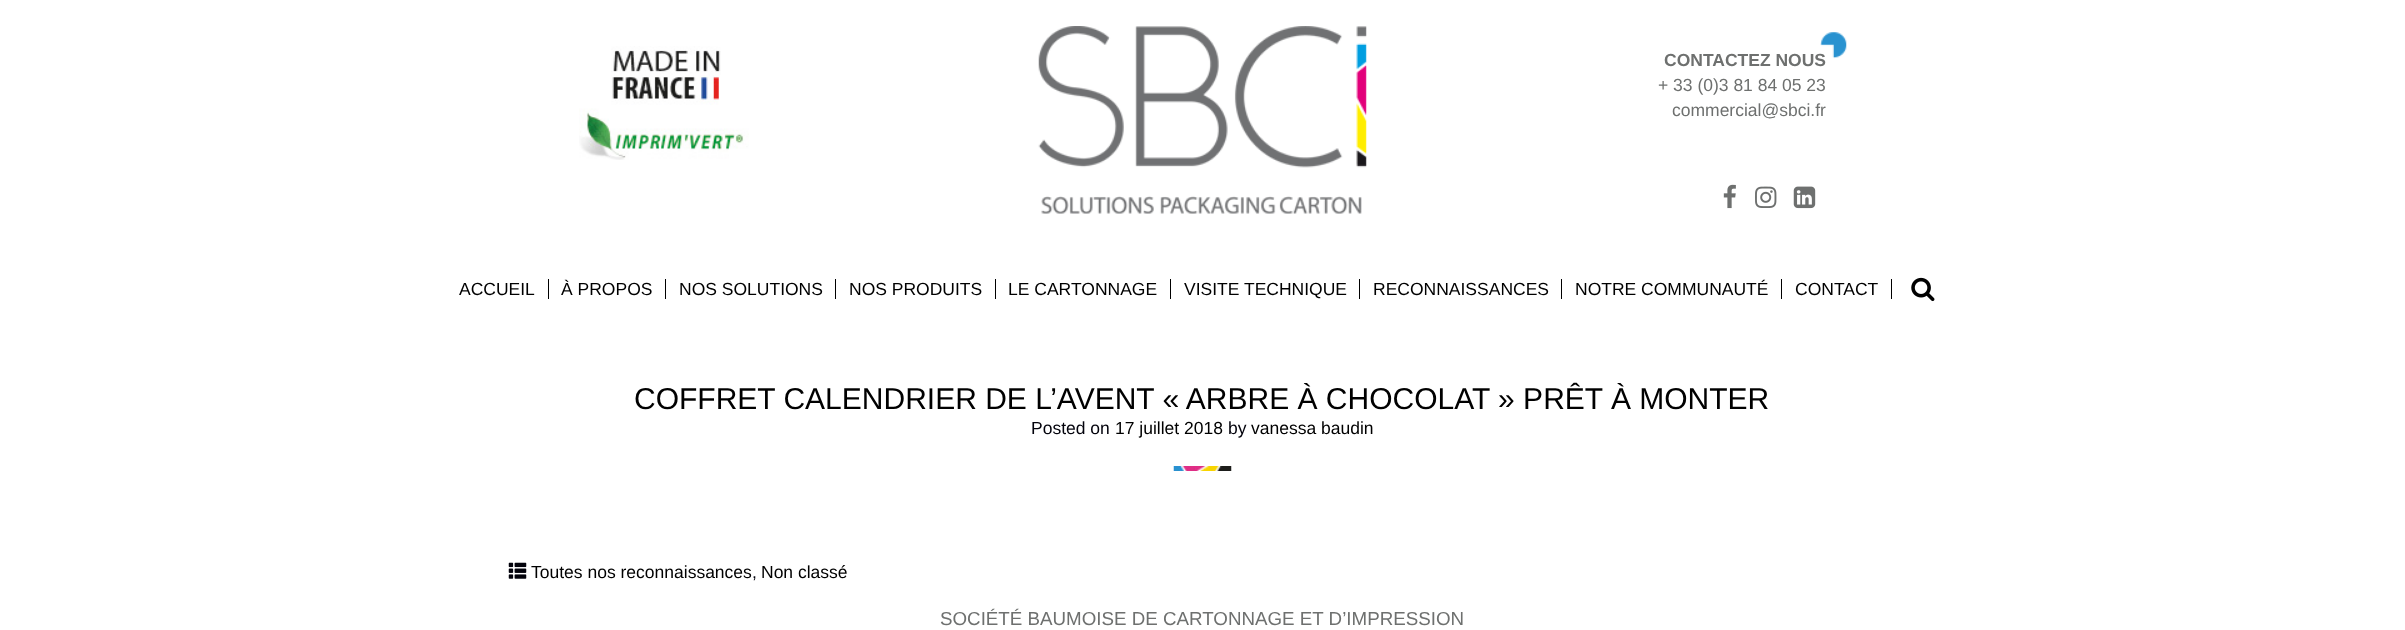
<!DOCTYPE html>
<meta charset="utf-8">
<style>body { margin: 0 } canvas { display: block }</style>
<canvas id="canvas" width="2405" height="630"></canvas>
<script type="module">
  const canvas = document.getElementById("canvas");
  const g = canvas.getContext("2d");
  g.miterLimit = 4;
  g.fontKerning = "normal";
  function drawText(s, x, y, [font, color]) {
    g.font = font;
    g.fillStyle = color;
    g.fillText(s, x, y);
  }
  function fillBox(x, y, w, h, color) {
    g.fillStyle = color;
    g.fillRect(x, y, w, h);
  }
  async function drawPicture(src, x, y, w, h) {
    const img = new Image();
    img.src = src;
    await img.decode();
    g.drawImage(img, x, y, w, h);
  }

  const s1 = ["bold 17.5px Liberation Sans", "#6E706F"];
  const s2 = ["17.5px Liberation Sans", "#6E706F"];
  const s3 = ["17.5px Liberation Sans", "#000000"];
  const s4 = ["30px Liberation Sans", "#000000"];
  const s5 = ["17.5px Liberation Sans", "#02020B"];
  const s6 = ["18.75px Liberation Sans", "#6E706F"];

  fillBox(0, 0, 2405, 630, "#FFFFFF");
  await drawPicture("pic1.png", 611, 46, 110, 59);
  await drawPicture("pic2.png", 579, 108, 170, 52);
  await drawPicture("pic3.png", 1038, 26, 329, 188);
  await drawPicture("pic4.png", 1820, 32, 27, 27);
  drawText("CONTACTEZ NOUS", 1664, 66, s1);
  drawText("+ 33 (0)3 81 84 05 23", 1658, 91, s2);
  drawText("commercial@sbci.fr", 1672, 116, s2);
  await drawPicture("pic5.png", 1723, 184, 13, 25);
  await drawPicture("pic6.png", 1755, 186, 22, 22);
  await drawPicture("pic7.png", 1793, 186, 23, 23);
  drawText("ACCUEIL", 459, 295, s3);
  fillBox(548, 279, 1, 20, "#000000");
  drawText("À PROPOS", 561, 295, s3);
  fillBox(665, 279, 1, 20, "#000000");
  drawText("NOS SOLUTIONS", 679, 295, s3);
  fillBox(835, 279, 1, 20, "#000000");
  drawText("NOS PRODUITS", 849, 295, s3);
  fillBox(995, 279, 1, 20, "#000000");
  drawText("LE CARTONNAGE", 1008, 295, s3);
  fillBox(1170, 279, 1, 20, "#000000");
  drawText("VISITE TECHNIQUE", 1184, 295, s3);
  fillBox(1359, 279, 1, 20, "#000000");
  drawText("RECONNAISSANCES", 1373, 295, s3);
  fillBox(1561, 279, 1, 20, "#000000");
  drawText("NOTRE COMMUNAUTÉ", 1575, 295, s3);
  fillBox(1781, 279, 1, 20, "#000000");
  drawText("CONTACT", 1795, 295, s3);
  fillBox(1891, 279, 1, 20, "#000000");
  await drawPicture("pic8.png", 1911, 277, 24, 25);
  drawText("COFFRET CALENDRIER DE L’AVENT « ARBRE À CHOCOLAT » PRÊT À MONTER", 634, 409, s4);
  drawText("Posted on", 1031, 434, s5);
  drawText("17 juillet 2018", 1115, 434, s3);
  drawText("by", 1228, 434, s5);
  drawText("vanessa baudin", 1251, 434, s3);
  await drawPicture("pic9.png", 1173, 466, 59, 5);
  await drawPicture("pic10.png", 508, 562, 19, 17);
  drawText("Toutes nos reconnaissances", 531, 578, s3);
  drawText(",", 752, 578, s5);
  drawText("Non classé", 761, 578, s3);
  drawText("SOCIÉTÉ BAUMOISE DE CARTONNAGE ET D’IMPRESSION", 940, 625, s6);
</script>
